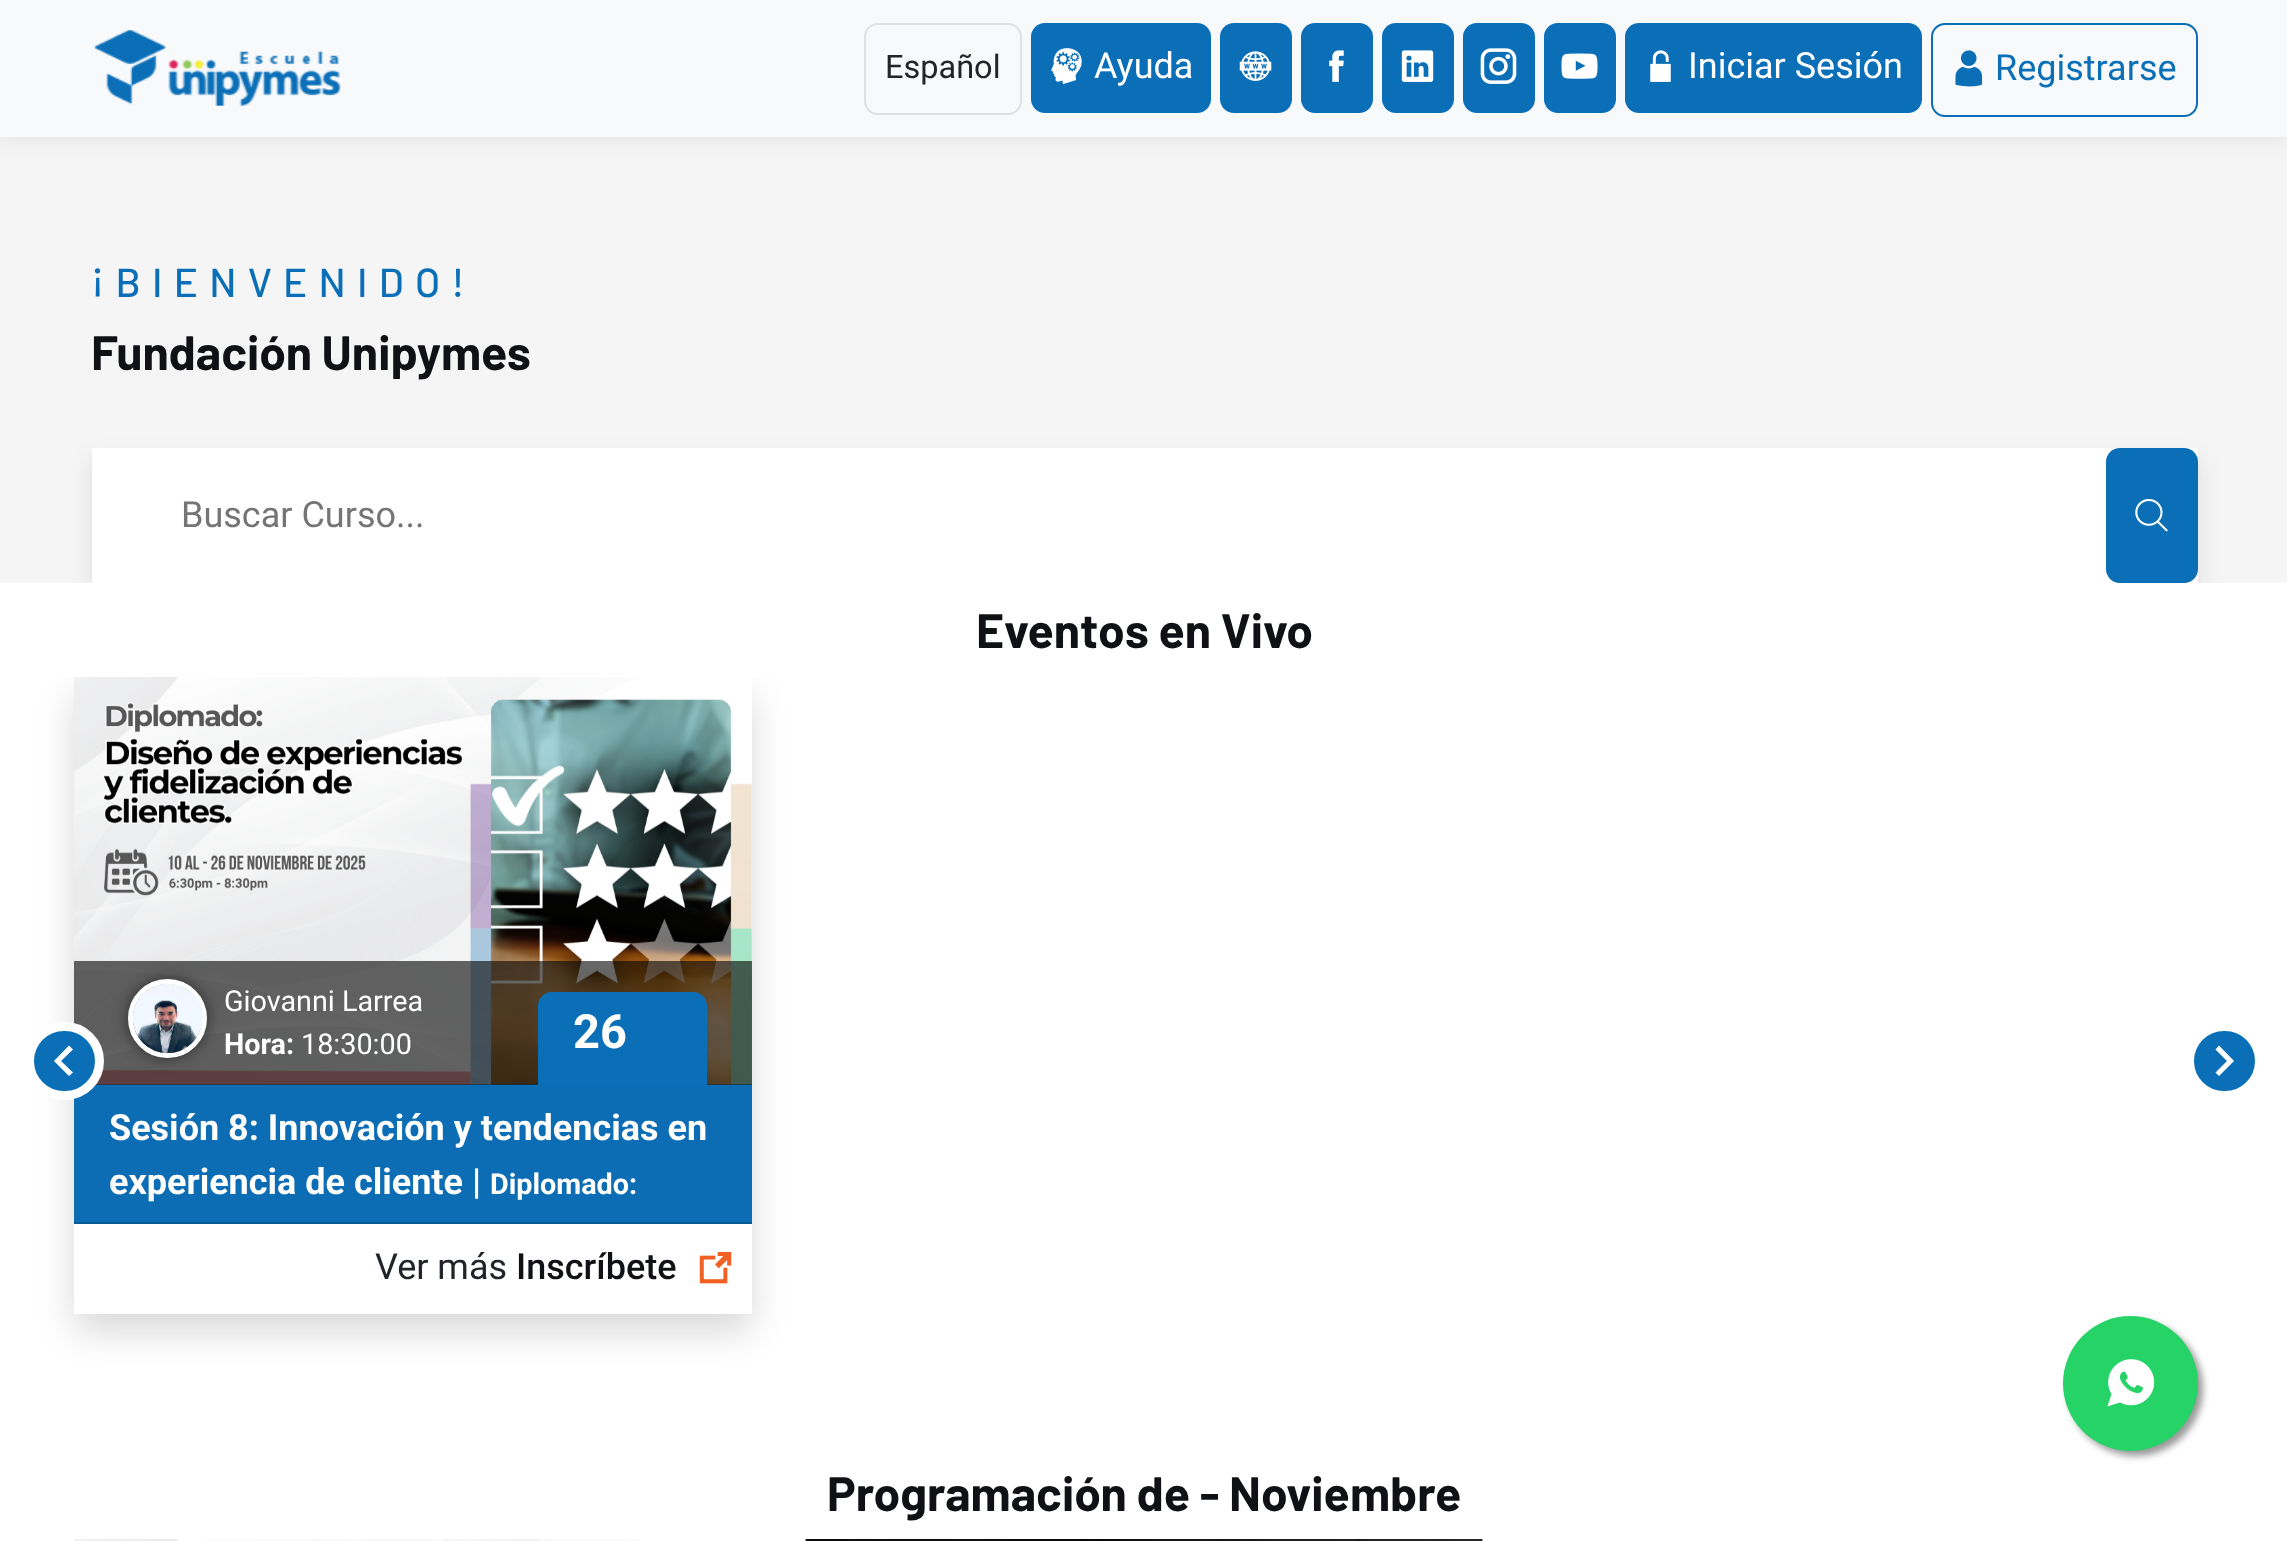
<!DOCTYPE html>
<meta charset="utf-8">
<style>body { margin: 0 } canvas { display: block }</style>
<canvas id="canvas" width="2287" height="1541"></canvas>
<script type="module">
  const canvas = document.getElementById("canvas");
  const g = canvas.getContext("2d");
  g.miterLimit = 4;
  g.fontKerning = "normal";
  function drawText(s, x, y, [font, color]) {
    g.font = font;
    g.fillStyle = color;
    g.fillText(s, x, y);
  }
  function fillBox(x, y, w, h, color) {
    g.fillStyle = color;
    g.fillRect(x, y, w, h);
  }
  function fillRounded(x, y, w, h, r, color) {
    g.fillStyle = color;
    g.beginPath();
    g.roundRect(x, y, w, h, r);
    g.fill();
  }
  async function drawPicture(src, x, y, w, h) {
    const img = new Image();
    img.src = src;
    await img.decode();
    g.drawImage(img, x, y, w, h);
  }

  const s1 = ["32.5px Roboto", "#212529"];
  const s2 = ["36px Roboto", "#FFFFFF"];
  const s3 = ["36px Roboto", "#0B6FB8"];
  const s4 = ["500 40.5px Barlow", "#0B6FB8"];
  const s5 = ["bold 48.1px Barlow", "#101115"];
  const s6 = ["36px Roboto", "#757575"];
  const s7 = ["28.75px Roboto", "#FFFFFF"];
  const s8 = ["bold 28.75px Roboto", "#FFFFFF"];
  const s9 = ["bold 47px Roboto", "#FFFFFF"];
  const s10 = ["bold 36px Roboto", "#FFFFFF"];
  const s11 = ["36px Roboto", "#212529"];
  const s12 = ["500 36px Roboto", "#101115"];

  fillBox(0, 0, 2287, 1541, "#FFFFFF");
  fillBox(0, 137, 2287, 446, "#F5F5F5");
  g.fillStyle = "rgba(16, 17, 21, 0.1)";
  g.filter = "blur(11px)";
  g.beginPath();
  g.rect(0, 0, 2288, 137);
  g.fill();
  g.filter = "none";
  fillBox(0, 0, 2287, 137, "#F8F9FA");
  await drawPicture("pic1.png", 94, 30, 248, 76);
  g.beginPath();
  g.roundRect(865, 24, 156, 90, 13);
  g.strokeStyle = "#DEE2E6";
  g.lineWidth = 2;
  g.stroke();
  drawText("Español", 885, 78, s1);
  fillRounded(1031, 23, 180, 90, 14, "#0B6FB8");
  await drawPicture("pic2.png", 1051, 48, 31, 37);
  drawText("Ayuda", 1094, 78, s2);
  fillRounded(1220, 23, 72, 90, 14, "#0B6FB8");
  await drawPicture("pic3.png", 1239, 51, 33, 30);
  fillRounded(1301, 23, 72, 90, 14, "#0B6FB8");
  await drawPicture("pic4.png", 1329, 50, 15, 32);
  fillRounded(1382, 23, 72, 90, 14, "#0B6FB8");
  await drawPicture("pic5.png", 1401, 50, 33, 32);
  fillRounded(1463, 23, 72, 90, 14, "#0B6FB8");
  await drawPicture("pic6.png", 1480, 48, 37, 36);
  fillRounded(1544, 23, 72, 90, 14, "#0B6FB8");
  await drawPicture("pic7.png", 1561, 53, 37, 26);
  fillRounded(1625, 23, 297, 90, 14, "#0B6FB8");
  await drawPicture("pic8.png", 1650, 50, 21, 32);
  drawText("Iniciar Sesión", 1688, 78, s2);
  g.beginPath();
  g.roundRect(1932, 24, 265, 92, 13);
  g.strokeStyle = "#0B6FB8";
  g.stroke();
  await drawPicture("pic9.png", 1955, 50, 28, 37);
  drawText("Registrarse", 1995, 80, s3);
  g.letterSpacing = "11.25px";
  drawText("¡BIENVENIDO!", 91, 297, s4);
  g.letterSpacing = "0px";
  drawText("Fundación Unipymes", 91, 370, s5);
  g.save();
  g.beginPath();
  g.rect(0, 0, 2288, 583);
  g.clip();
  g.fillStyle = "rgba(16, 17, 21, 0.1)";
  g.filter = "blur(11px)";
  g.beginPath();
  g.rect(92, 459, 2106, 135);
  g.fill();
  g.filter = "none";
  g.restore();
  fillBox(92, 448, 2106, 135, "#FFFFFF");
  drawText("Buscar Curso...", 181, 527, s6);
  fillRounded(2106, 448, 92, 135, 14, "#0B6FB8");
  await drawPicture("pic10.png", 2135, 499, 33, 33);
  drawText("Eventos en Vivo", 976, 648, s5);
  g.save();
  g.beginPath();
  g.rect(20, 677, 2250, 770);
  g.clip();
  g.fillStyle = "rgba(0, 0, 0, 0.15)";
  g.filter = "blur(18px)";
  g.beginPath();
  g.roundRect(74, 695, 678, 637, 14);
  g.fill();
  g.filter = "none";
  g.restore();
  fillBox(95, 1084, 657, 1, "#0B6FB8");
  await drawPicture("pic11.png", 74, 677, 678, 408);
  fillBox(74, 961, 678, 124, "rgba(0, 0, 0, 0.6)");
  g.fillStyle = "rgba(0, 0, 0, 0.5)";
  g.filter = "blur(8px)";
  g.beginPath();
  g.roundRect(128, 979, 79, 79, 39.5);
  g.fill();
  g.filter = "none";
  fillBox(74, 1085, 678, 137, "#0C6DB4");
  g.fillStyle = "#0B6FB8";
  g.beginPath();
  g.roundRect(29.5, 1026.5, 70, 69, 34.5);
  g.fill();
  g.strokeStyle = "#FFFFFF";
  g.lineWidth = 9;
  g.stroke();
  g.fillStyle = "#FFFFFF";
  g.beginPath();
  g.moveTo(73, 1072.5);
  g.lineTo(61, 1061);
  g.lineTo(73, 1049.5);
  g.lineTo(69, 1045.5);
  g.lineTo(54, 1061);
  g.lineTo(69, 1076);
  g.closePath();
  g.fill();
  g.beginPath();
  g.arc(167.5, 1018.5, 37, 0, Math.PI * 2);
  g.lineWidth = 5;
  g.stroke();
  await drawPicture("pic12.png", 133, 983, 69, 71);
  drawText("Giovanni Larrea", 224, 1011, s7);
  drawText("Hora:", 224, 1054, s8);
  drawText("18:30:00", 301, 1054, s7);
  g.fillStyle = "#0B6FB8";
  g.beginPath();
  g.roundRect(538, 992, 169, 93, [14, 14, 0, 0]);
  g.fill();
  drawText("26", 573, 1048, s9);
  fillBox(74, 1222, 678, 2, "#0A5A94");
  drawText("Sesión 8: Innovación y tendencias en", 109, 1140, s10);
  drawText("experiencia de cliente |", 109, 1194, s10);
  drawText("Diplomado:", 490, 1194, s8);
  fillBox(74, 1224, 678, 90, "#FFFFFF");
  drawText("Ver más", 375, 1279, s11);
  drawText("Inscríbete", 516, 1279, s12);
  await drawPicture("pic13.png", 699, 1252, 33, 32);
  g.fillStyle = "#0B6FB8";
  g.beginPath();
  g.roundRect(2189.5, 1026.5, 70, 69, 34.5);
  g.fill();
  g.lineWidth = 9;
  g.stroke();
  g.fillStyle = "#FFFFFF";
  g.beginPath();
  g.moveTo(2215.5, 1072.5);
  g.lineTo(2227, 1061);
  g.lineTo(2215.5, 1049.5);
  g.lineTo(2219, 1045.5);
  g.lineTo(2234, 1061);
  g.lineTo(2219, 1076);
  g.closePath();
  g.fill();
  drawText("Programación de - Noviembre", 827, 1511, s5);
  await drawPicture("pic14.png", 74, 1539, 672, 2);
  await drawPicture("pic15.png", 805, 1539, 678, 2);
  g.fillStyle = "#999999";
  g.filter = "blur(3.5px)";
  g.beginPath();
  g.roundRect(2068, 1321, 135, 135, 67.5);
  g.fill();
  g.filter = "none";
  g.fillStyle = "#25D366";
  g.beginPath();
  g.arc(2130.5, 1383.5, 67.5, 0, Math.PI * 2);
  g.fill();
  await drawPicture("pic16.png", 2107, 1359, 48, 48);
</script>
